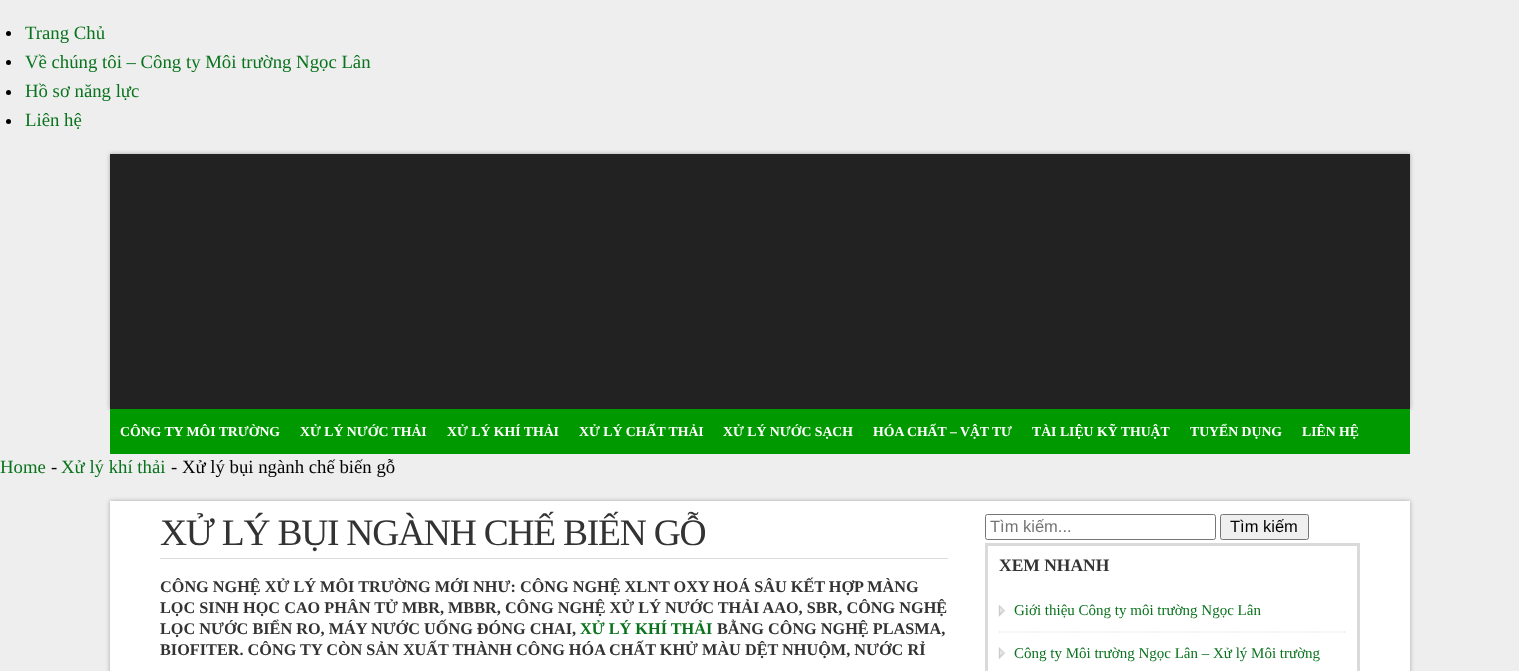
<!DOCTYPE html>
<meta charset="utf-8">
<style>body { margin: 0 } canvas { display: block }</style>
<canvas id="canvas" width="1519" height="671"></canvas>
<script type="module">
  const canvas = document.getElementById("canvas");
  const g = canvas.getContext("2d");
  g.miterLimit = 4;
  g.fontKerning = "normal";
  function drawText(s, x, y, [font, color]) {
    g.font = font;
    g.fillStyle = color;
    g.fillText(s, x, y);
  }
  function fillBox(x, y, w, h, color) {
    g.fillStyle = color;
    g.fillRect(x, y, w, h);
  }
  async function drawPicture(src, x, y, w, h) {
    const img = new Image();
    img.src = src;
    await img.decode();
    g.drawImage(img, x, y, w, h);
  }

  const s1 = ["18.75px Liberation Serif", "#0A731D"];
  const s2 = ["bold 13.75px Liberation Serif", "#FFFFFF"];
  const s3 = ["18.75px Liberation Serif", "#000000"];
  const s4 = ["37.5px Liberation Serif", "#333333"];
  const s5 = ["bold 16.25px Liberation Serif", "#333333"];
  const s6 = ["bold 16.25px Liberation Serif", "#0A731D"];
  const s7 = ["16.5px Liberation Sans", "#757575"];
  const s8 = ["16.5px Liberation Sans", "#000000"];
  const s9 = ["bold 17.5px Liberation Serif", "#333333"];
  const s10 = ["15px Liberation Serif", "#0A731D"];

  fillBox(0, 0, 1519, 671, "#EEEEEE");
  g.fillStyle = "#000000";
  g.beginPath();
  g.arc(8.5, 33.5, 2.5, 0, Math.PI * 2);
  g.fill();
  drawText("Trang Chủ", 25, 39, s1);
  g.fillStyle = "#000000";
  g.beginPath();
  g.arc(8.5, 62.5, 2.5, 0, Math.PI * 2);
  g.fill();
  drawText("Về chúng tôi – Công ty Môi trường Ngọc Lân", 25, 68, s1);
  g.fillStyle = "#000000";
  g.beginPath();
  g.arc(8.5, 92.5, 2.5, 0, Math.PI * 2);
  g.fill();
  drawText("Hồ sơ năng lực", 25, 97, s1);
  g.fillStyle = "#000000";
  g.beginPath();
  g.arc(8.5, 121.5, 2.5, 0, Math.PI * 2);
  g.fill();
  drawText("Liên hệ", 25, 126, s1);
  g.fillStyle = "rgba(0, 0, 0, 0.3)";
  g.filter = "blur(2px)";
  g.beginPath();
  g.rect(110, 154, 1300, 255);
  g.fill();
  g.filter = "none";
  fillBox(110, 154, 1300, 255, "#222222");
  fillBox(110, 409, 1300, 45, "#009900");
  drawText("CÔNG TY MÔI TRƯỜNG", 120, 436, s2);
  drawText("XỬ LÝ NƯỚC THẢI", 300, 436, s2);
  drawText("XỬ LÝ KHÍ THẢI", 447, 436, s2);
  drawText("XỬ LÝ CHẤT THẢI", 579, 436, s2);
  drawText("XỬ LÝ NƯỚC SẠCH", 723, 436, s2);
  drawText("HÓA CHẤT – VẬT TƯ", 873, 436, s2);
  drawText("TÀI LIỆU KỸ THUẬT", 1032, 436, s2);
  drawText("TUYỂN DỤNG", 1190, 436, s2);
  drawText("LIÊN HỆ", 1302, 436, s2);
  drawText("Home", 0, 473, s1);
  drawText("-", 51, 473, s3);
  drawText("Xử lý khí thải", 61, 473, s1);
  drawText("- Xử lý bụi ngành chế biến gỗ", 171, 473, s3);
  g.fillStyle = "rgba(0, 0, 0, 0.3)";
  g.filter = "blur(2px)";
  g.beginPath();
  g.rect(110, 501, 1300, 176);
  g.fill();
  g.filter = "none";
  fillBox(110, 501, 1300, 170, "#FFFFFF");
  fillBox(160, 558, 788, 1, "#DADADA");
  g.letterSpacing = "-1.25px";
  drawText("XỬ LÝ BỤI NGÀNH CHẾ BIẾN GỖ", 160, 545, s4);
  g.letterSpacing = "0px";
  drawText("CÔNG NGHỆ XỬ LÝ MÔI TRƯỜNG MỚI NHƯ: CÔNG NGHỆ XLNT OXY HOÁ SÂU KẾT HỢP MÀNG", 160, 592, s5);
  drawText("LỌC SINH HỌC CAO PHÂN TỬ MBR, MBBR, CÔNG NGHỆ XỬ LÝ NƯỚC THẢI AAO, SBR, CÔNG NGHỆ", 160, 613, s5);
  drawText("LỌC NƯỚC BIỂN RO, MÁY NƯỚC UỐNG ĐÓNG CHAI,", 160, 634, s5);
  drawText("XỬ LÝ KHÍ THẢI", 580, 634, s6);
  drawText("BẰNG CÔNG NGHỆ PLASMA,", 717, 634, s5);
  drawText("BIOFITER. CÔNG TY CÒN SẢN XUẤT THÀNH CÔNG HÓA CHẤT KHỬ MÀU DỆT NHUỘM, NƯỚC RỈ", 160, 655, s5);
  g.beginPath();
  g.roundRect(985.5, 514.5, 230, 25, 2);
  g.strokeStyle = "#767676";
  g.stroke();
  drawText("Tìm kiếm...", 990, 532, s7);
  g.fillStyle = "#EFEFEF";
  g.beginPath();
  g.roundRect(1220.5, 514.5, 88, 25, 2);
  g.fill();
  g.stroke();
  drawText("Tìm kiếm", 1230, 532, s8);
  g.strokeStyle = "#DADADA";
  g.lineWidth = 3;
  g.strokeRect(986.5, 544.5, 372, 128);
  drawText("XEM NHANH", 999, 571, s9);
  await drawPicture("pic1.png", 998, 605, 8, 12);
  g.beginPath();
  g.moveTo(999, 632);
  g.lineTo(1346, 632);
  g.strokeStyle = "#DDDDDD";
  g.lineWidth = 1.2;
  g.setLineDash([1.25, 1.25]);
  g.stroke();
  drawText("Giới thiệu Công ty môi trường Ngọc Lân", 1014, 615, s10);
  await drawPicture("pic2.png", 998, 647, 7, 12);
  drawText("Công ty Môi trường Ngọc Lân – Xử lý Môi trường", 1014, 658, s10);
</script>
